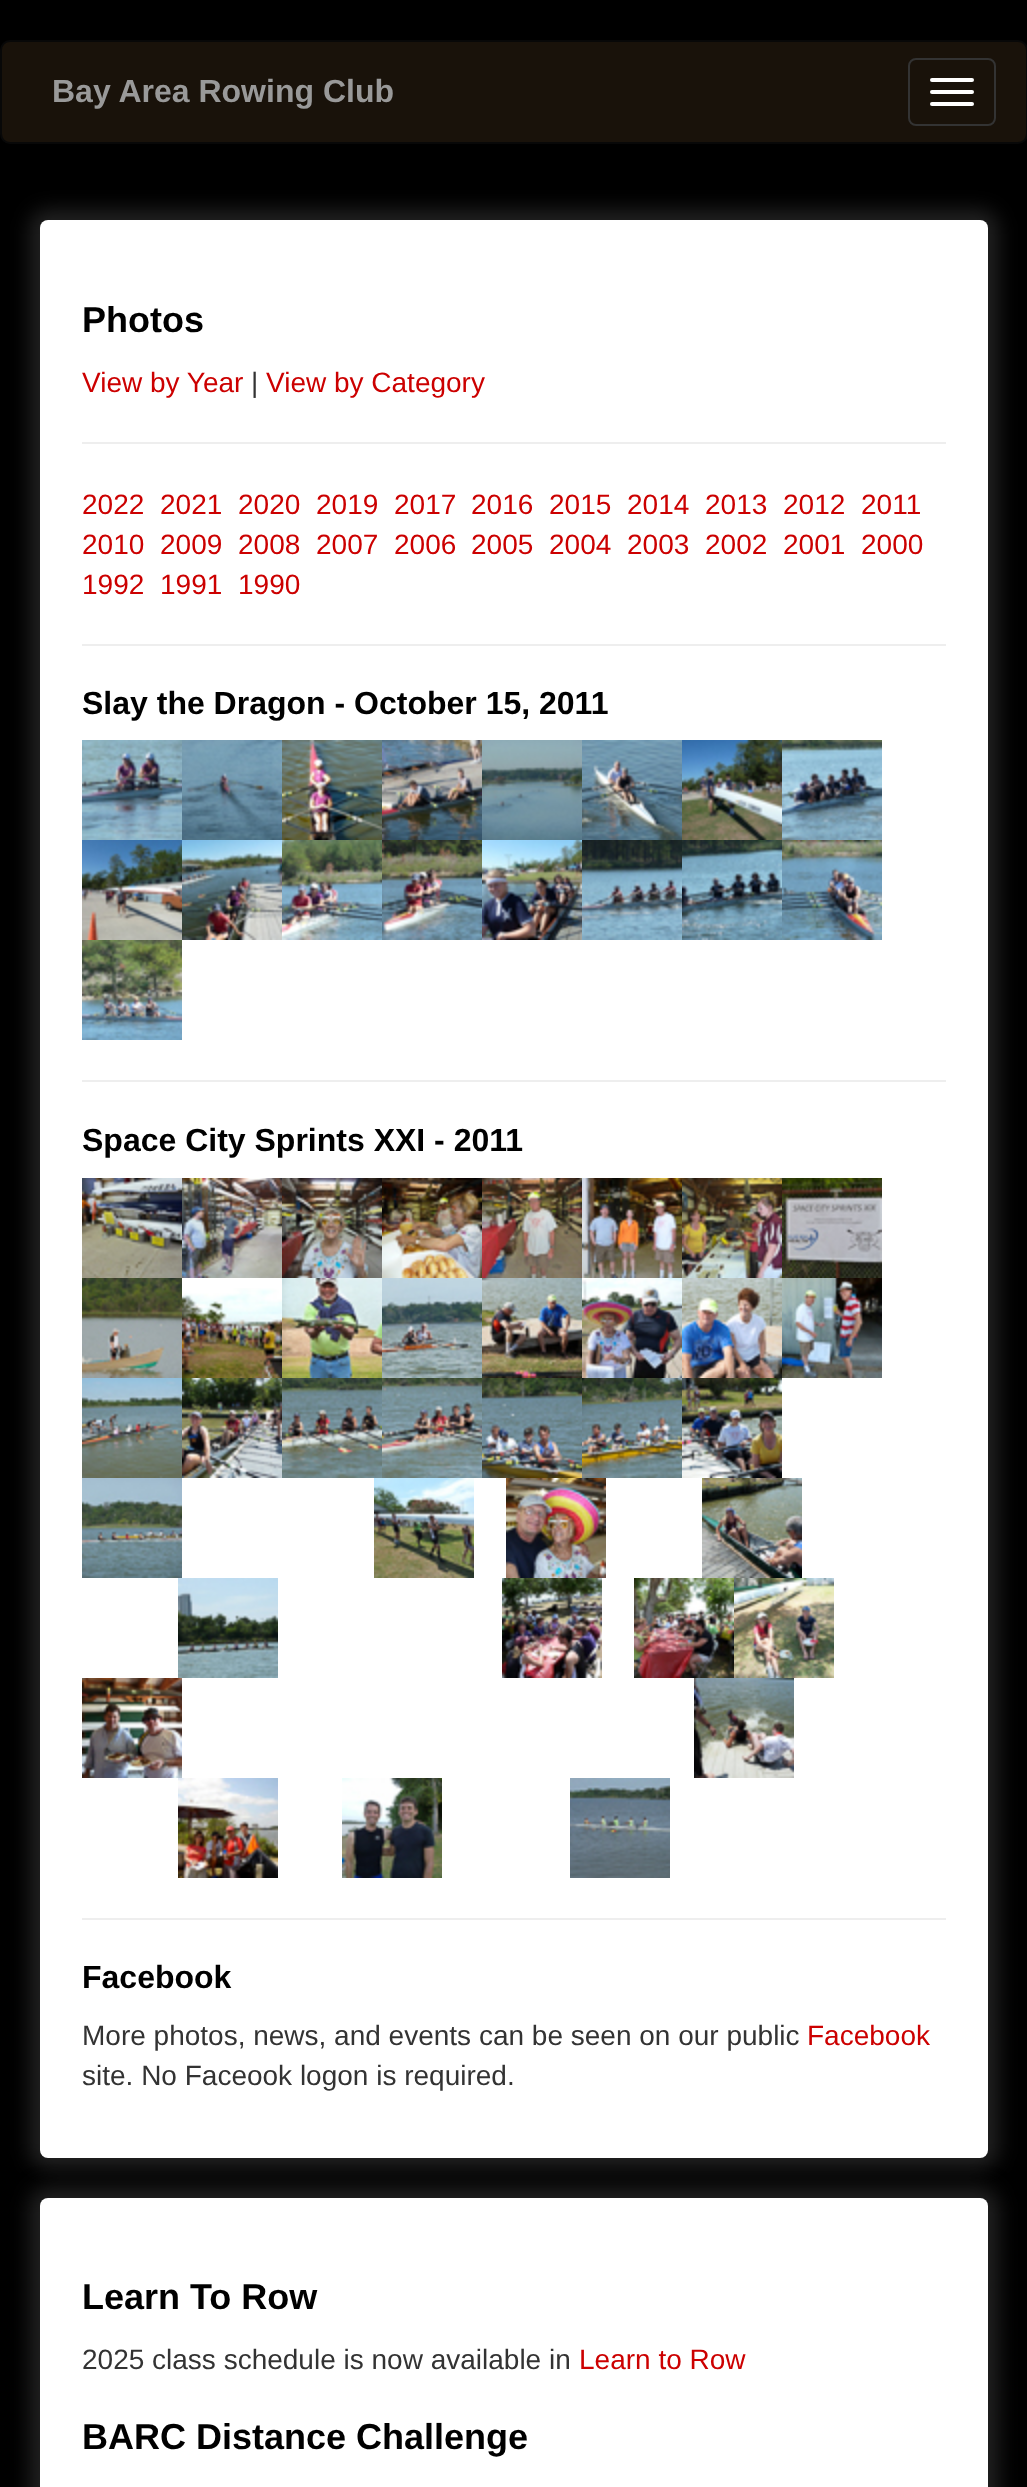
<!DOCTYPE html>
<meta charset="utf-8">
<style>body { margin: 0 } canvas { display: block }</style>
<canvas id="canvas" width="1027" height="2487"></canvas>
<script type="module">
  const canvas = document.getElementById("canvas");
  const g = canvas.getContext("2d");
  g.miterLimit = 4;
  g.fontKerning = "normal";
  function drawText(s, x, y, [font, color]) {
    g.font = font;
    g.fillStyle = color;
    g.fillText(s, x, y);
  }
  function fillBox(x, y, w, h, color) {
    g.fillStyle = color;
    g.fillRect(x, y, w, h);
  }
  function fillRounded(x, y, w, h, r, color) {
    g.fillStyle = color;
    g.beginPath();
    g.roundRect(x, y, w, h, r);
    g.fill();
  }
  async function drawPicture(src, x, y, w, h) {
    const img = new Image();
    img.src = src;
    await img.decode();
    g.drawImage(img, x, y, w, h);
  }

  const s1 = ["bold 32px Liberation Sans", "#999999"];
  const s2 = ["bold 36px Liberation Sans", "#000000"];
  const s3 = ["28px Liberation Sans", "#CC0000"];
  const s4 = ["28px Liberation Sans", "#333333"];
  const s5 = ["bold 32px Liberation Sans", "#000000"];

  fillBox(0, 0, 1027, 2487, "#000000");
  g.fillStyle = "#19120A";
  g.beginPath();
  g.roundRect(1, 41, 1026, 102, 9);
  g.fill();
  g.strokeStyle = "#080808";
  g.lineWidth = 2;
  g.stroke();
  drawText("Bay Area Rowing Club", 52, 102, s1);
  g.beginPath();
  g.roundRect(909, 59, 86, 66, 7);
  g.strokeStyle = "#333333";
  g.stroke();
  fillRounded(930, 78, 44, 4, 2, "#FFFFFF");
  fillRounded(930, 90, 44, 4, 2, "#FFFFFF");
  fillRounded(930, 102, 44, 4, 2, "#FFFFFF");
  g.fillStyle = "#222222";
  g.filter = "blur(10px)";
  g.beginPath();
  g.roundRect(30, 210, 968, 1958, 18);
  g.fill();
  g.filter = "none";
  fillRounded(40, 220, 948, 1938, 8, "#FFFFFF");
  drawText("Photos", 82, 332, s2);
  drawText("View by Year", 82, 392, s3);
  drawText("|", 251, 392, s4);
  drawText("View by Category", 266, 392, s3);
  fillBox(82, 442, 864, 2, "#EEEEEE");
  drawText("2022", 82, 514, s3);
  drawText("2021", 160, 514, s3);
  drawText("2020", 238, 514, s3);
  drawText("2019", 316, 514, s3);
  drawText("2017", 394, 514, s3);
  drawText("2016", 471, 514, s3);
  drawText("2015", 549, 514, s3);
  drawText("2014", 627, 514, s3);
  drawText("2013", 705, 514, s3);
  drawText("2012", 783, 514, s3);
  drawText("2011", 861, 514, s3);
  drawText("2010", 82, 554, s3);
  drawText("2009", 160, 554, s3);
  drawText("2008", 238, 554, s3);
  drawText("2007", 316, 554, s3);
  drawText("2006", 394, 554, s3);
  drawText("2005", 471, 554, s3);
  drawText("2004", 549, 554, s3);
  drawText("2003", 627, 554, s3);
  drawText("2002", 705, 554, s3);
  drawText("2001", 783, 554, s3);
  drawText("2000", 861, 554, s3);
  drawText("1992", 82, 594, s3);
  drawText("1991", 160, 594, s3);
  drawText("1990", 238, 594, s3);
  fillBox(82, 644, 864, 2, "#EEEEEE");
  drawText("Slay the Dragon - October 15, 2011", 82, 714, s5);
  await drawPicture("pic1.png", 82, 740, 100, 100);
  await drawPicture("pic2.png", 182, 740, 100, 100);
  await drawPicture("pic3.png", 282, 740, 100, 100);
  await drawPicture("pic4.png", 382, 740, 100, 100);
  await drawPicture("pic5.png", 482, 740, 100, 100);
  await drawPicture("pic6.png", 582, 740, 100, 100);
  await drawPicture("pic7.png", 682, 740, 100, 100);
  await drawPicture("pic8.png", 782, 740, 100, 100);
  await drawPicture("pic9.png", 82, 840, 100, 100);
  await drawPicture("pic10.png", 182, 840, 100, 100);
  await drawPicture("pic11.png", 282, 840, 100, 100);
  await drawPicture("pic12.png", 382, 840, 100, 100);
  await drawPicture("pic13.png", 482, 840, 100, 100);
  await drawPicture("pic14.png", 582, 840, 100, 100);
  await drawPicture("pic15.png", 682, 840, 100, 100);
  await drawPicture("pic16.png", 782, 840, 100, 100);
  await drawPicture("pic17.png", 82, 940, 100, 100);
  fillBox(82, 1080, 864, 2, "#EEEEEE");
  drawText("Space City Sprints XXI - 2011", 82, 1151, s5);
  await drawPicture("pic18.png", 82, 1178, 100, 100);
  await drawPicture("pic19.png", 182, 1178, 100, 100);
  await drawPicture("pic20.png", 282, 1178, 100, 100);
  await drawPicture("pic21.png", 382, 1178, 100, 100);
  await drawPicture("pic22.png", 482, 1178, 100, 100);
  await drawPicture("pic23.png", 582, 1178, 100, 100);
  await drawPicture("pic24.png", 682, 1178, 100, 100);
  await drawPicture("pic25.png", 782, 1178, 100, 100);
  await drawPicture("pic26.png", 82, 1278, 100, 100);
  await drawPicture("pic27.png", 182, 1288, 100, 90);
  await drawPicture("pic28.png", 282, 1278, 100, 100);
  await drawPicture("pic29.png", 382, 1278, 100, 100);
  await drawPicture("pic30.png", 482, 1278, 100, 100);
  await drawPicture("pic31.png", 582, 1278, 100, 100);
  await drawPicture("pic32.png", 682, 1278, 100, 100);
  await drawPicture("pic33.png", 782, 1278, 100, 100);
  await drawPicture("pic34.png", 82, 1378, 100, 100);
  await drawPicture("pic35.png", 182, 1378, 100, 100);
  await drawPicture("pic36.png", 282, 1378, 100, 100);
  await drawPicture("pic37.png", 382, 1378, 100, 100);
  await drawPicture("pic38.png", 482, 1378, 100, 100);
  await drawPicture("pic39.png", 582, 1378, 100, 100);
  await drawPicture("pic40.png", 682, 1378, 100, 100);
  await drawPicture("pic41.png", 82, 1478, 100, 100);
  await drawPicture("pic42.png", 374, 1478, 100, 100);
  await drawPicture("pic43.png", 506, 1478, 100, 100);
  await drawPicture("pic44.png", 702, 1478, 100, 100);
  await drawPicture("pic45.png", 178, 1578, 100, 100);
  await drawPicture("pic46.png", 502, 1578, 100, 100);
  await drawPicture("pic47.png", 634, 1578, 100, 100);
  await drawPicture("pic48.png", 734, 1578, 100, 100);
  await drawPicture("pic49.png", 82, 1678, 100, 100);
  await drawPicture("pic50.png", 694, 1678, 100, 100);
  await drawPicture("pic51.png", 178, 1778, 100, 100);
  await drawPicture("pic52.png", 342, 1778, 100, 100);
  await drawPicture("pic53.png", 570, 1778, 100, 100);
  fillBox(82, 1918, 864, 2, "#EEEEEE");
  drawText("Facebook", 82, 1988, s5);
  drawText("More photos, news, and events can be seen on our public", 82, 2045, s4);
  drawText("Facebook", 807, 2045, s3);
  drawText("site. No Faceook logon is required.", 82, 2085, s4);
  g.fillStyle = "#222222";
  g.filter = "blur(10px)";
  g.beginPath();
  g.roundRect(30, 2188, 968, 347, 18);
  g.fill();
  g.filter = "none";
  fillRounded(40, 2198, 948, 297, 8, "#FFFFFF");
  drawText("Learn To Row", 82, 2309, s2);
  drawText("2025 class schedule is now available in", 82, 2369, s4);
  drawText("Learn to Row", 579, 2369, s3);
  drawText("BARC Distance Challenge", 82, 2449, s2);
</script>
